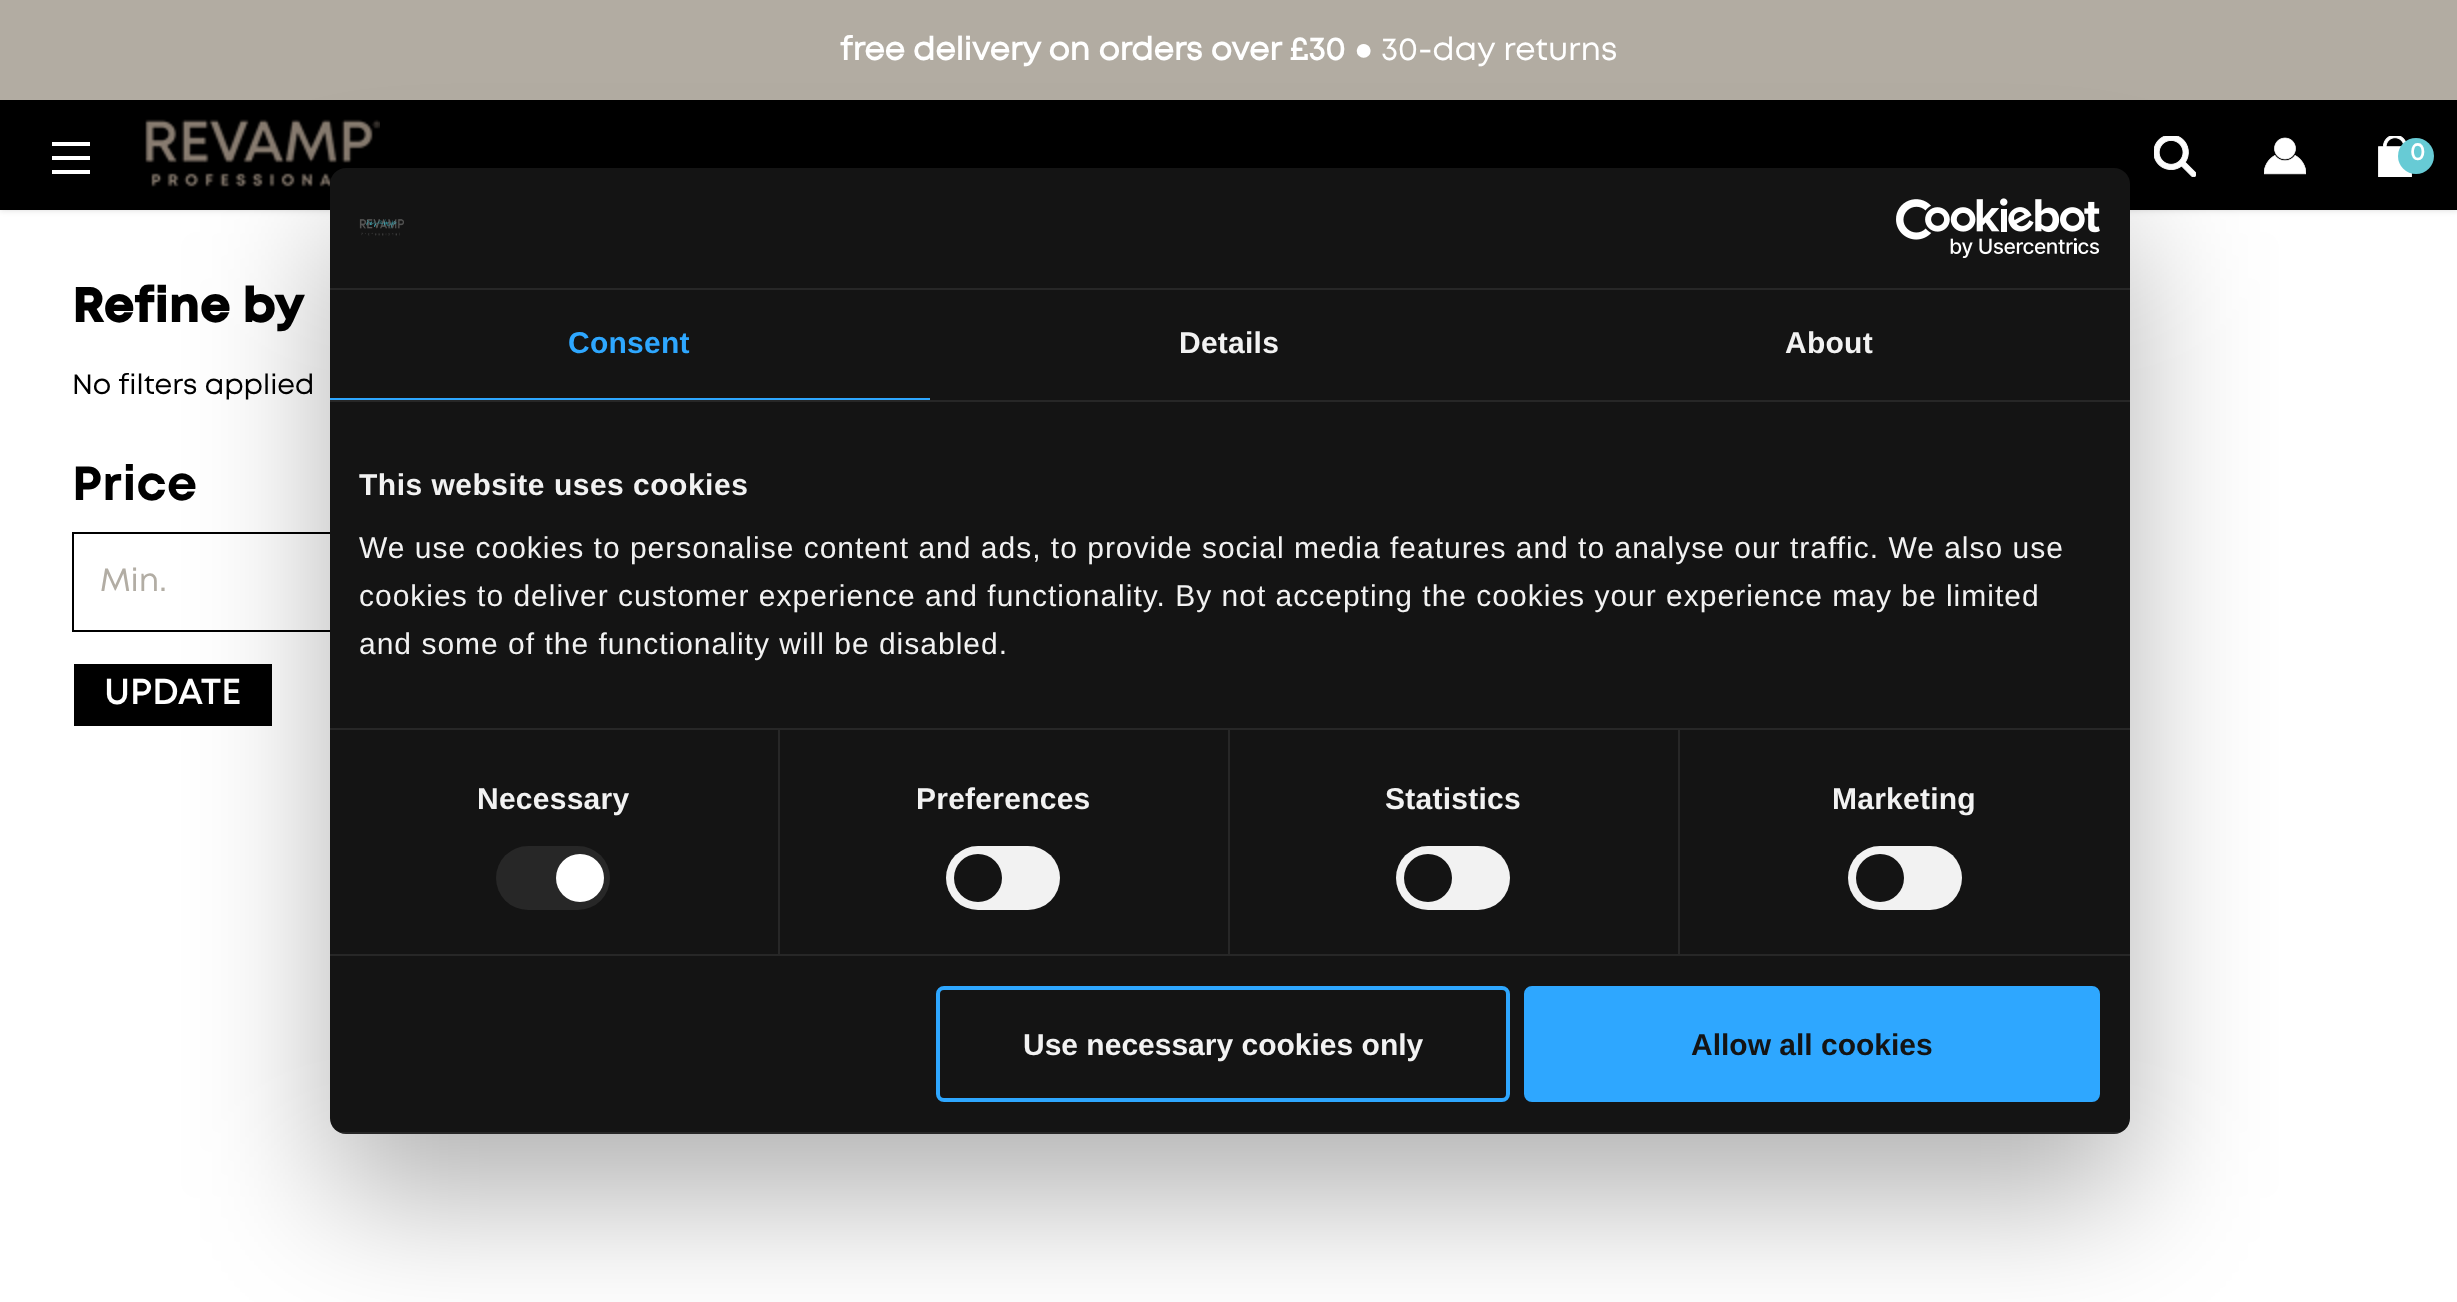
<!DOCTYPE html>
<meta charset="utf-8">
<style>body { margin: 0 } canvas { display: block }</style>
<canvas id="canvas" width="2457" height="1302"></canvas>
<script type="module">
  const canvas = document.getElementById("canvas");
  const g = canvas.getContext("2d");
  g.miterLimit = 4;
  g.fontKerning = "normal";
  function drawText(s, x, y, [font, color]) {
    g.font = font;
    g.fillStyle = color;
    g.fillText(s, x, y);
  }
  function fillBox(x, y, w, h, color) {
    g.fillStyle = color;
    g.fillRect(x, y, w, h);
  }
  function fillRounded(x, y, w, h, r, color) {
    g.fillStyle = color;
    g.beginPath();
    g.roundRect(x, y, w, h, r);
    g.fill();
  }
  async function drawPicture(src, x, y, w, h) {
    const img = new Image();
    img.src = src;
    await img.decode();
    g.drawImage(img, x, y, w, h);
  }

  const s1 = ["bold 32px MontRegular", "#FFFFFF"];
  const s2 = ["bold 32px Liberation Serif", "#FFFFFF"];
  const s3 = ["32px MontRegular", "#FFFFFF"];
  const s4 = ["bold 24px MontRegular", "#FFFFFF"];
  const s5 = ["bold 48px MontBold", "#000000"];
  const s6 = ["28px MontRegular", "#000000"];
  const s7 = ["48px MontBold", "#000000"];
  const s8 = ["32px MontRegular", "#B2ADA4"];
  const s9 = ["36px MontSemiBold", "#FFFFFF"];
  const s10 = ["bold 30px Liberation Sans", "#2EA7FF"];
  const s11 = ["bold 30px Liberation Sans", "#F2F2F2"];
  const s12 = ["30px Liberation Sans", "#F2F2F2"];
  const s13 = ["bold 30px Liberation Sans", "#141414"];

  fillBox(0, 0, 2457, 1302, "#FFFFFF");
  g.fillStyle = "rgba(0, 0, 0, 0.15)";
  g.filter = "blur(3px)";
  g.beginPath();
  g.rect(0, 0, 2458, 210);
  g.fill();
  g.filter = "none";
  fillBox(0, 100, 2457, 110, "#000000");
  fillBox(0, 0, 2457, 100, "#B2ACA2");
  drawText("free delivery on orders over £30", 840, 60, s1);
  drawText("●", 1354, 60, s2);
  drawText("30-day returns", 1381, 60, s3);
  fillBox(52, 156, 38, 4, "#FFFFFF");
  fillBox(52, 142, 38, 4, "#FFFFFF");
  fillBox(52, 170, 38, 4, "#FFFFFF");
  await drawPicture("pic1.png", 145, 119, 235, 68);
  await drawPicture("pic2.png", 2154, 136, 42, 41);
  await drawPicture("pic3.png", 2264, 137, 42, 38);
  await drawPicture("pic4.png", 2378, 136, 34, 41);
  g.fillStyle = "#67CBD5";
  g.beginPath();
  g.arc(2416, 156, 18, 0, Math.PI * 2);
  g.fill();
  drawText("0", 2410, 160, s4);
  g.letterSpacing = "0.5px";
  drawText("Refine by", 72, 322, s5);
  g.letterSpacing = "0px";
  drawText("No filters applied", 72, 394, s6);
  g.letterSpacing = "0.5px";
  drawText("Price", 72, 500, s7);
  g.strokeStyle = "#000000";
  g.lineWidth = 2;
  g.strokeRect(73, 533, 262, 98);
  g.letterSpacing = "0px";
  drawText("Min.", 100, 591, s8);
  fillBox(74, 664, 198, 62, "#000000");
  drawText("UPDATE", 104, 704, s9);
  g.fillStyle = "rgba(0, 0, 0, 0.3)";
  g.filter = "blur(68px)";
  g.beginPath();
  g.roundRect(330, 232, 1800, 966, 16);
  g.fill();
  g.filter = "none";
  fillRounded(330, 168, 1800, 966, 16, "#141414");
  fillBox(330, 288, 1800, 2, "#272727");
  await drawPicture("pic5.png", 359, 219, 45, 17);
  await drawPicture("pic6.png", 1896, 198, 204, 60);
  fillBox(330, 400, 1800, 2, "#272727");
  fillBox(330, 398, 600, 2, "#2EA7FF");
  g.letterSpacing = "0.25px";
  drawText("Consent", 568, 353, s10);
  drawText("Details", 1179, 353, s11);
  drawText("About", 1785, 353, s11);
  fillBox(330, 728, 1800, 2, "#272727");
  g.letterSpacing = "0.5px";
  drawText("This website uses cookies", 359, 495, s11);
  g.letterSpacing = "1px";
  drawText("We use cookies to personalise content and ads, to provide social media features and to analyse our traffic. We also use", 359, 558, s12);
  drawText("cookies to deliver customer experience and functionality. By not accepting the cookies your experience may be limited", 359, 606, s12);
  drawText("and some of the functionality will be disabled.", 359, 654, s12);
  fillBox(330, 954, 1800, 2, "#272727");
  fillBox(778, 730, 2, 224, "#272727");
  g.letterSpacing = "0.25px";
  drawText("Necessary", 477, 809, s11);
  fillRounded(496, 846, 114, 64, 32, "#272727");
  g.fillStyle = "#FFFFFF";
  g.beginPath();
  g.arc(580, 878, 24, 0, Math.PI * 2);
  g.fill();
  fillBox(1228, 730, 2, 224, "#272727");
  drawText("Preferences", 916, 809, s11);
  fillRounded(946, 846, 114, 64, 32, "#F2F2F2");
  g.fillStyle = "#141414";
  g.beginPath();
  g.arc(978, 878, 24, 0, Math.PI * 2);
  g.fill();
  fillBox(1678, 730, 2, 224, "#272727");
  drawText("Statistics", 1385, 809, s11);
  fillRounded(1396, 846, 114, 64, 32, "#F2F2F2");
  g.fillStyle = "#141414";
  g.beginPath();
  g.arc(1428, 878, 24, 0, Math.PI * 2);
  g.fill();
  drawText("Marketing", 1832, 809, s11);
  fillRounded(1848, 846, 114, 64, 32, "#F2F2F2");
  g.fillStyle = "#141414";
  g.beginPath();
  g.arc(1880, 878, 24, 0, Math.PI * 2);
  g.fill();
  g.save();
  g.beginPath();
  g.roundRect(330, 168, 1800, 966, 16);
  g.clip();
  fillBox(339, 1132, 1782, 2, "rgba(255, 255, 255, 0.08)");
  g.restore();
  g.beginPath();
  g.roundRect(938, 988, 570, 112, 6);
  g.strokeStyle = "#2EA7FF";
  g.lineWidth = 4;
  g.stroke();
  g.letterSpacing = "0px";
  drawText("Use necessary cookies only", 1023, 1055, s11);
  g.fillStyle = "#2EA7FF";
  g.beginPath();
  g.roundRect(1526, 988, 572, 112, 6);
  g.fill();
  g.stroke();
  drawText("Allow all cookies", 1691, 1055, s13);
</script>
